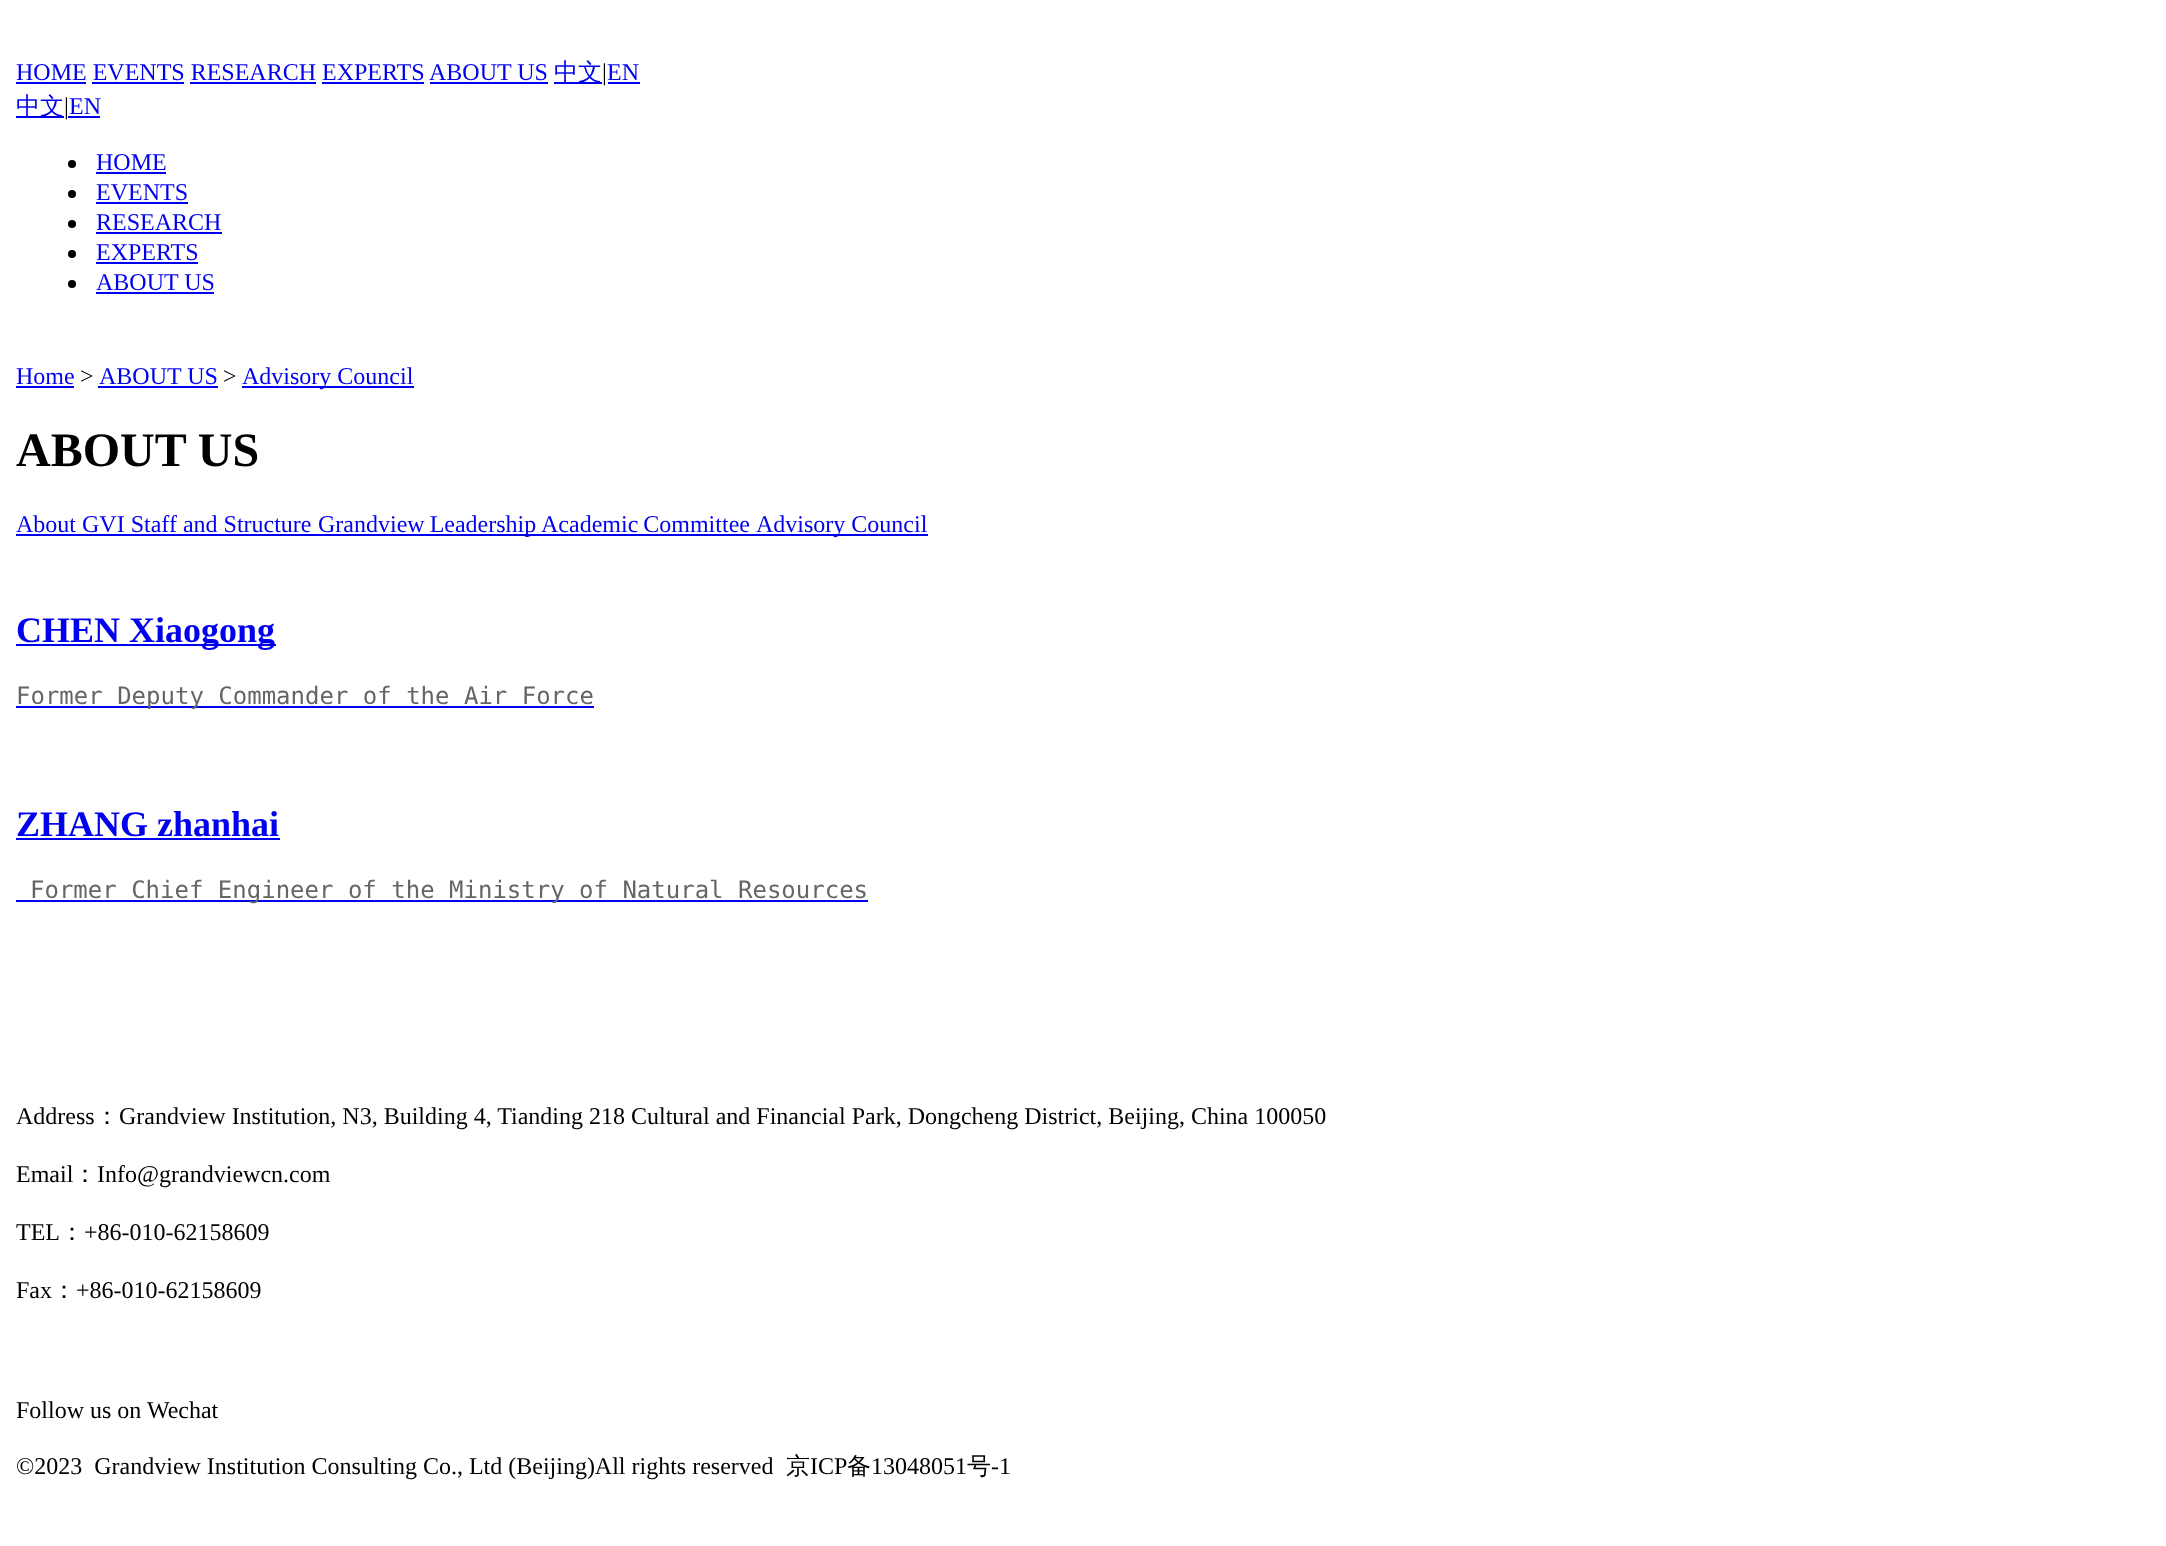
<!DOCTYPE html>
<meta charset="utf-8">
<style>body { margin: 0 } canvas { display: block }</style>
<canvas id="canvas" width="2166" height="1546"></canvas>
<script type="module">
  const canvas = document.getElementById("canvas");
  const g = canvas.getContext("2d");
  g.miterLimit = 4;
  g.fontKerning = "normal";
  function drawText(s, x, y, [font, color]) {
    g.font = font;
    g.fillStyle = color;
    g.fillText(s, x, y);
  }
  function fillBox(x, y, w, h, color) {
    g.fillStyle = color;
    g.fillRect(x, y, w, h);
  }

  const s1 = ["24px Liberation Serif", "#0000EE"];
  const s2 = ["500 24px WenQuanYi Zen Hei", "#0000EE"];
  const s3 = ["24px Liberation Serif", "#000000"];
  const s4 = ["bold 48px Liberation Serif", "#000000"];
  const s5 = ["bold 36px Liberation Serif", "#0000EE"];
  const s6 = ["24px DejaVu Sans Mono", "#656565"];
  const s7 = ["500 24px WenQuanYi Zen Hei", "#000000"];

  fillBox(0, 0, 2166, 1546, "#FFFFFF");
  drawText("HOME EVENTS RESEARCH EXPERTS", 16, 80, s1);
  fillBox(16, 82, 70, 2, "#0000EE");
  drawText("ABOUT US", 429, 80, s1);
  fillBox(430, 82, 118, 2, "#0000EE");
  fillBox(554, 82, 48, 2, "#0000EE");
  drawText("中文", 554, 80, s2);
  drawText("|", 602, 80, s3);
  fillBox(608, 82, 32, 2, "#0000EE");
  drawText("EN", 607, 80, s1);
  fillBox(92, 82, 92, 2, "#0000EE");
  fillBox(190, 82, 126, 2, "#0000EE");
  fillBox(322, 82, 102, 2, "#0000EE");
  fillBox(16, 116, 48, 2, "#0000EE");
  drawText("中文", 16, 114, s2);
  drawText("|", 64, 114, s3);
  fillBox(68, 116, 32, 2, "#0000EE");
  drawText("EN", 69, 114, s1);
  g.fillStyle = "#000000";
  g.beginPath();
  g.arc(72, 164, 4, 0, Math.PI * 2);
  g.fill();
  drawText("HOME", 96, 170, s1);
  fillBox(96, 172, 70, 2, "#0000EE");
  g.fillStyle = "#000000";
  g.beginPath();
  g.arc(72, 194, 4, 0, Math.PI * 2);
  g.fill();
  drawText("EVENTS", 96, 200, s1);
  fillBox(96, 202, 92, 2, "#0000EE");
  g.fillStyle = "#000000";
  g.beginPath();
  g.arc(72, 224, 4, 0, Math.PI * 2);
  g.fill();
  drawText("RESEARCH", 96, 230, s1);
  fillBox(96, 232, 126, 2, "#0000EE");
  g.fillStyle = "#000000";
  g.beginPath();
  g.arc(72, 254, 4, 0, Math.PI * 2);
  g.fill();
  drawText("EXPERTS", 96, 260, s1);
  fillBox(96, 262, 102, 2, "#0000EE");
  g.fillStyle = "#000000";
  g.beginPath();
  g.arc(72, 284, 4, 0, Math.PI * 2);
  g.fill();
  drawText("ABOUT US", 96, 290, s1);
  fillBox(96, 292, 118, 2, "#0000EE");
  drawText("Home", 16, 384, s1);
  fillBox(16, 386, 58, 2, "#0000EE");
  drawText(">", 80, 384, s3);
  drawText("ABOUT US", 99, 384, s1);
  fillBox(98, 386, 120, 2, "#0000EE");
  drawText(">", 223, 384, s3);
  fillBox(242, 386, 172, 2, "#0000EE");
  drawText("Advisory Council", 242, 384, s1);
  drawText("ABOUT US", 16, 466, s4);
  drawText("About GVI Staff and Structure", 16, 532, s1);
  fillBox(16, 534, 912, 2, "#0000EE");
  g.wordSpacing = "-1px";
  drawText("Grandview Leadership", 318, 532, s1);
  drawText("Academic Committee", 541, 532, s1);
  g.wordSpacing = "0px";
  drawText("Advisory Council", 756, 532, s1);
  fillBox(16, 644, 260, 2, "#0000EE");
  drawText("CHEN Xiaogong", 16, 642, s5);
  fillBox(16, 706, 578, 2, "#0000EE");
  drawText("Former Deputy Commander of the Air Force", 16, 704, s6);
  drawText("ZHANG zhanhai", 16, 836, s5);
  fillBox(16, 838, 264, 2, "#0000EE");
  fillBox(16, 900, 852, 2, "#0000EE");
  drawText("Former Chief Engineer of the Ministry of Natural Resources", 30, 898, s6);
  drawText("Address", 16, 1124, s3);
  drawText("：", 95, 1124, s7);
  drawText("Grandview Institution, N3, Building 4, Tianding 218 Cultural and Financial Park, Dongcheng District, Beijing, China 100050", 119, 1124, s3);
  drawText("Email", 16, 1182, s3);
  drawText("：", 73, 1182, s7);
  drawText("Info@grandviewcn.com", 97, 1182, s3);
  drawText("TEL", 16, 1240, s3);
  drawText("：", 60, 1240, s7);
  drawText("+86-010-62158609", 84, 1240, s3);
  drawText("Fax", 16, 1298, s3);
  drawText("：", 52, 1298, s7);
  drawText("+86-010-62158609", 76, 1298, s3);
  drawText("Follow us on Wechat", 16, 1418, s3);
  drawText("©2023  Grandview Institution Consulting Co., Ltd (Beijing)All rights reserved", 16, 1474, s3);
  drawText("京", 786, 1474, s7);
  drawText("ICP", 810, 1474, s3);
  drawText("备", 847, 1474, s7);
  drawText("13048051", 871, 1474, s3);
  drawText("号", 967, 1474, s7);
  drawText("-1", 991, 1474, s3);
</script>
